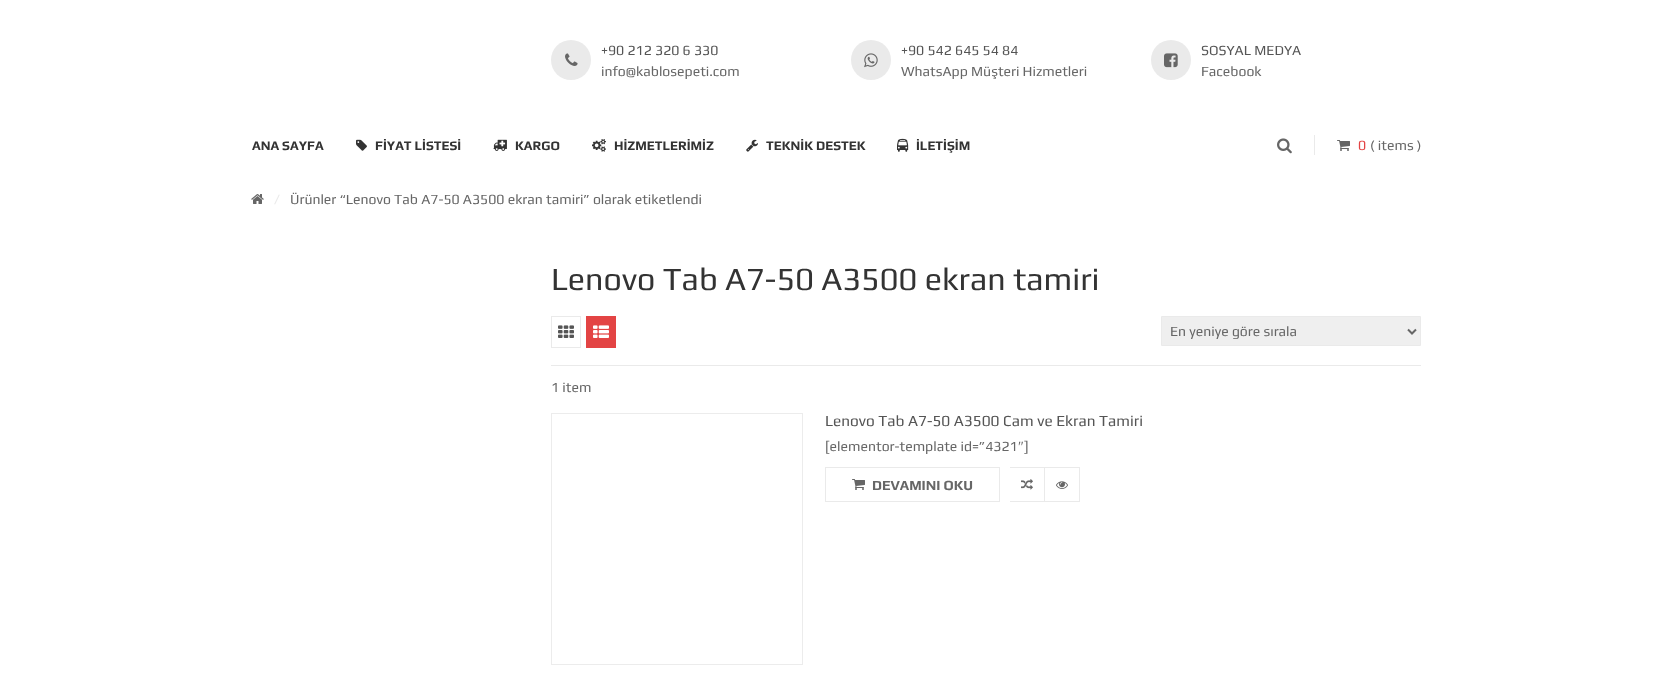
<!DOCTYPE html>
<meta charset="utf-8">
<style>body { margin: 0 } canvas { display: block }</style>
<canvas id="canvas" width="1672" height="677"></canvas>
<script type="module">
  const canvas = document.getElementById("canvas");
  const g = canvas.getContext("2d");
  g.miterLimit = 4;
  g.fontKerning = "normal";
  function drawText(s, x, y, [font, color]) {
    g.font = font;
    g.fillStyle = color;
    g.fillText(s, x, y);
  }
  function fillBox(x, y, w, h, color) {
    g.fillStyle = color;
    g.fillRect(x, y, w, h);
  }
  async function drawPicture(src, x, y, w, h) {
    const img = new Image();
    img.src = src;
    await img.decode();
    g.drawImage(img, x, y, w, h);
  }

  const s1 = ["14px Play", "#555555"];
  const s2 = ["14px Play", "#666666"];
  const s3 = ["bold 13px Play", "#333333"];
  const s4 = ["14px Play", "#E34444"];
  const s5 = ["14px Play", "#EAEAEA"];
  const s6 = ["32.3px Play", "#333333"];
  const s7 = ["15.4px Play", "#555555"];
  const s8 = ["14px Liberation Serif", "#666666"];
  const s9 = ["bold 14px Play", "#666666"];

  fillBox(0, 0, 1672, 677, "#FFFFFF");
  g.fillStyle = "#EAEAEA";
  g.beginPath();
  g.arc(571, 60, 20, 0, Math.PI * 2);
  g.fill();
  await drawPicture("pic1.png", 565, 53, 13, 13);
  drawText("+90 212 320 6 330", 601, 55, s1);
  drawText("info@kablosepeti.com", 601, 76, s2);
  g.fillStyle = "#EAEAEA";
  g.beginPath();
  g.arc(871, 60, 20, 0, Math.PI * 2);
  g.fill();
  await drawPicture("pic2.png", 864, 53, 14, 15);
  drawText("+90 542 645 54 84", 901, 55, s1);
  drawText("WhatsApp Müşteri Hizmetleri", 901, 76, s2);
  g.fillStyle = "#EAEAEA";
  g.beginPath();
  g.arc(1171, 60, 20, 0, Math.PI * 2);
  g.fill();
  await drawPicture("pic3.png", 1164, 53, 14, 15);
  drawText("SOSYAL MEDYA", 1201, 55, s1);
  drawText("Facebook", 1201, 76, s2);
  drawText("ANA SAYFA", 252, 150, s3);
  await drawPicture("pic4.png", 356, 139, 11, 12);
  drawText("FİYAT LİSTESİ", 375, 150, s3);
  await drawPicture("pic5.png", 493, 139, 14, 12);
  drawText("KARGO", 515, 150, s3);
  await drawPicture("pic6.png", 592, 139, 14, 13);
  drawText("HİZMETLERİMİZ", 614, 150, s3);
  await drawPicture("pic7.png", 746, 139, 12, 13);
  drawText("TEKNİK DESTEK", 766, 150, s3);
  await drawPicture("pic8.png", 897, 138, 12, 14);
  drawText("İLETİŞİM", 916, 150, s3);
  await drawPicture("pic9.png", 1277, 138, 15, 16);
  fillBox(1314, 135, 1, 20, "#EAEAEA");
  await drawPicture("pic10.png", 1337, 140, 13, 11);
  drawText("0", 1358, 150, s4);
  drawText("( items )", 1370, 150, s2);
  await drawPicture("pic11.png", 251, 194, 13, 10);
  drawText("/", 274, 204, s5);
  drawText("Ürünler “Lenovo Tab A7-50 A3500 ekran tamiri” olarak etiketlendi", 290, 204, s2);
  drawText("Lenovo Tab A7-50 A3500 ekran tamiri", 551, 290, s6);
  fillBox(551, 365, 870, 1, "#EAEAEA");
  g.strokeStyle = "#EAEAEA";
  g.strokeRect(551.5, 316.5, 29, 31);
  await drawPicture("pic12.png", 558, 325, 16, 13);
  fillBox(586, 316, 30, 32, "#E34444");
  await drawPicture("pic13.png", 593, 325, 16, 13);
  g.fillStyle = "#EFEFEF";
  g.beginPath();
  g.rect(1161.5, 316.5, 259, 29);
  g.fill();
  g.stroke();
  g.beginPath();
  g.moveTo(1408, 329.5);
  g.lineTo(1412, 333.5);
  g.lineTo(1416, 329.5);
  g.strokeStyle = "#666666";
  g.lineWidth = 2;
  g.stroke();
  drawText("En yeniye göre sırala", 1170, 336, s2);
  drawText("1 item", 551, 392, s2);
  g.strokeStyle = "#ECECEC";
  g.lineWidth = 1;
  g.strokeRect(551.5, 413.5, 251, 251);
  drawText("Lenovo Tab A7-50 A3500 Cam ve Ekran Tamiri", 825, 426, s7);
  drawText("[elementor-template id=”4321", 825, 451, s2);
  drawText("″", 1018, 451, s8);
  drawText("]", 1024, 451, s2);
  fillBox(1010, 467, 70, 1, "#EAEAEA");
  fillBox(1044, 467, 1, 35, "#EAEAEA");
  fillBox(1010, 501, 35, 1, "#EAEAEA");
  await drawPicture("pic14.png", 1021, 479, 12, 11);
  g.strokeStyle = "#EAEAEA";
  g.strokeRect(825.5, 467.5, 174, 34);
  await drawPicture("pic10.png", 852, 479, 13, 11);
  drawText("DEVAMINI OKU", 872, 490, s9);
  fillBox(1079, 467, 1, 35, "#EAEAEA");
  fillBox(1045, 501, 35, 1, "#EAEAEA");
  await drawPicture("pic15.png", 1056, 481, 12, 8);
</script>
